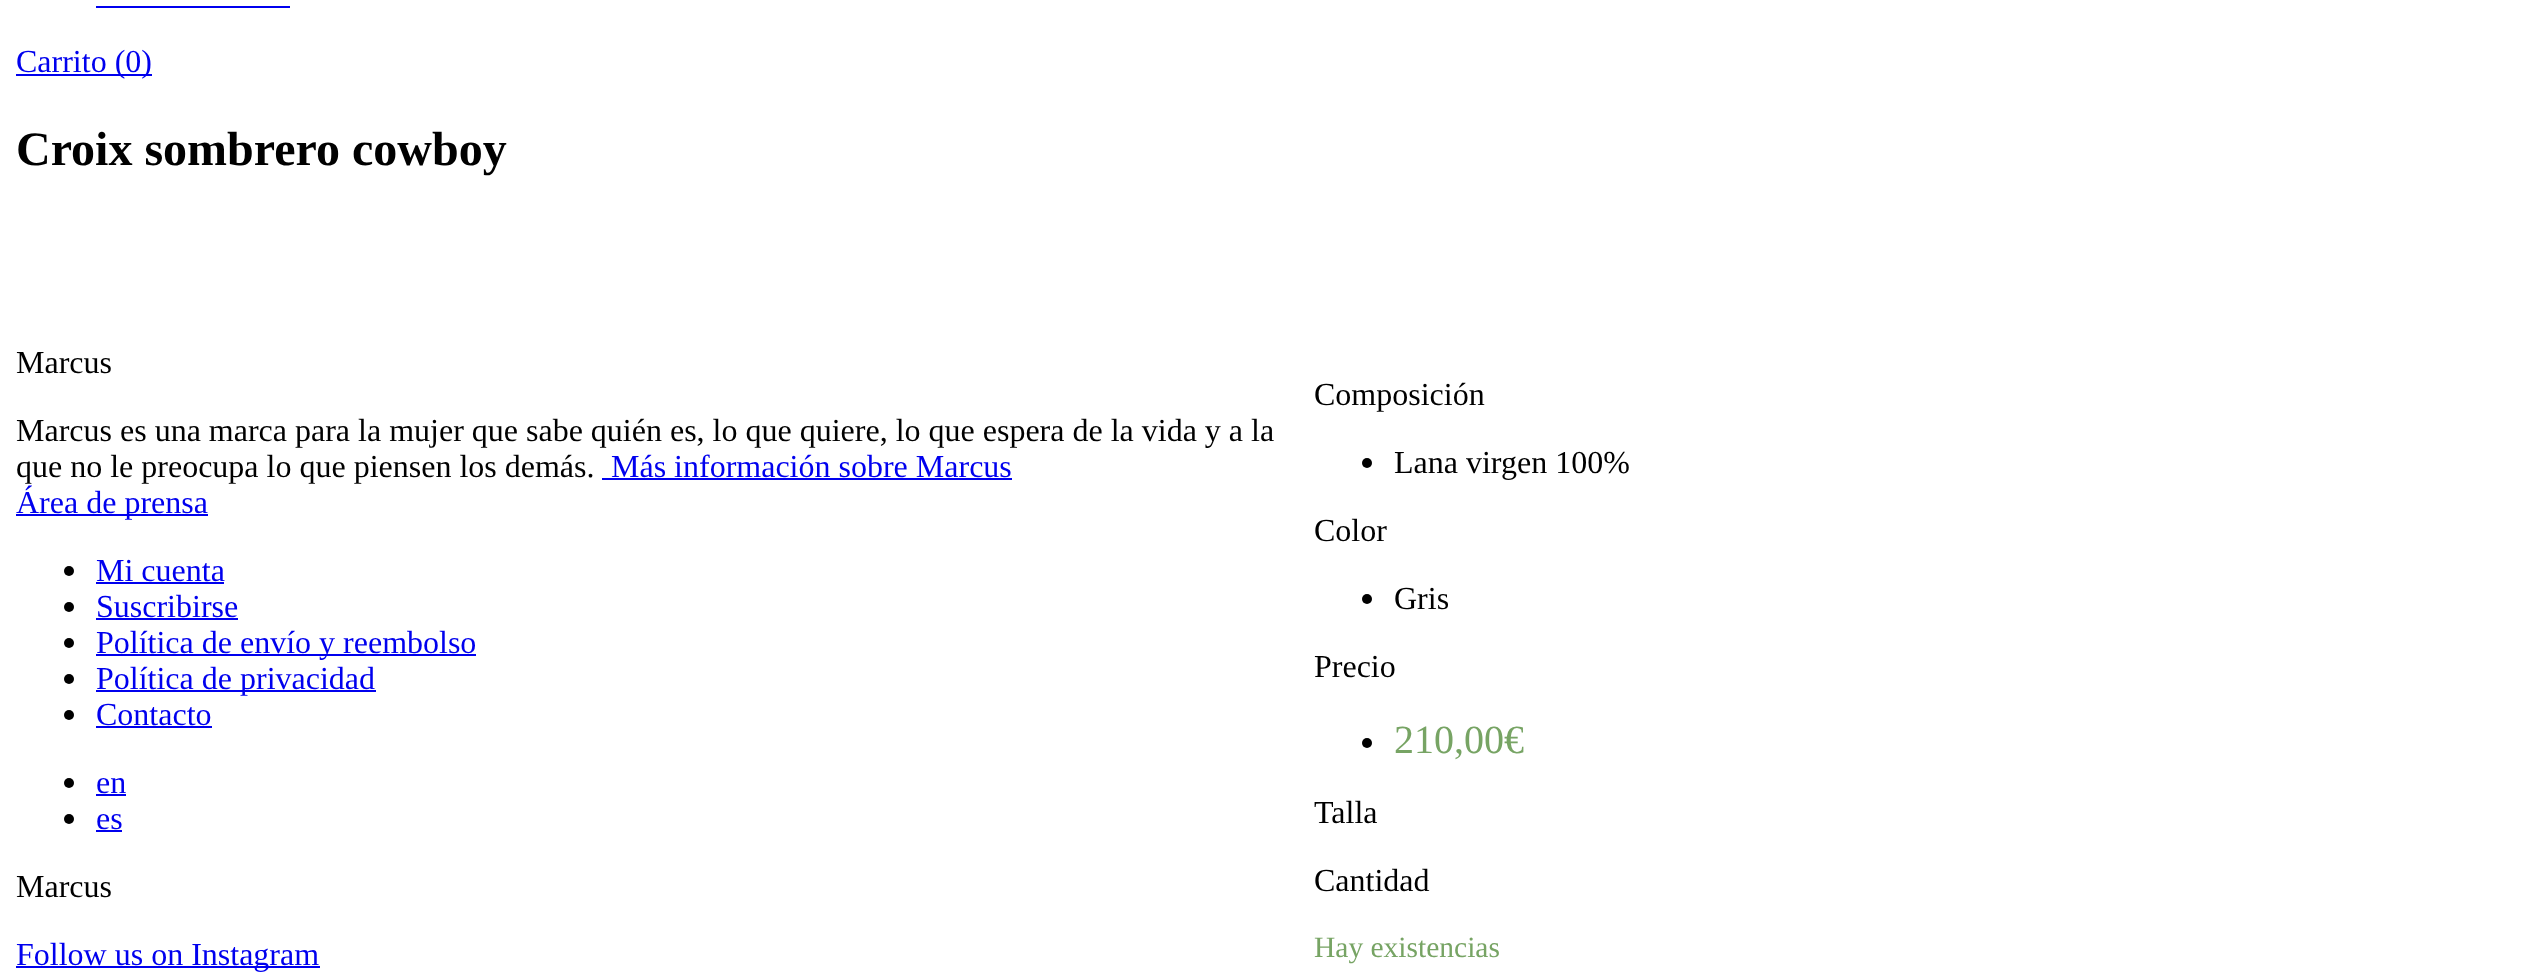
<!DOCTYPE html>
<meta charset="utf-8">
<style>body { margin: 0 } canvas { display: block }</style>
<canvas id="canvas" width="2528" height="980"></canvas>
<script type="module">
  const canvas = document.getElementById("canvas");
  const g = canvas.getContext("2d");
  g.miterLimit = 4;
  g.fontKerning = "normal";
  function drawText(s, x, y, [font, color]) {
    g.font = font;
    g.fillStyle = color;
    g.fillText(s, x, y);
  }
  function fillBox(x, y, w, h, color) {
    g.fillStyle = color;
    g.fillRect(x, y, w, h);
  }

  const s1 = ["32px Liberation Serif", "#0000EE"];
  const s2 = ["bold 48px Liberation Serif", "#000000"];
  const s3 = ["32px Liberation Serif", "#000000"];
  const s4 = ["40px Liberation Serif", "#77A464"];
  const s5 = ["29.5px Liberation Serif", "#77A464"];

  fillBox(0, 0, 2528, 980, "#FFFFFF");
  fillBox(96, 6, 194, 2, "#0000EE");
  fillBox(16, 74, 136, 2, "#0000EE");
  drawText("Carrito (0)", 16, 72, s1);
  drawText("Croix sombrero cowboy", 16, 165, s2);
  drawText("Composición", 1314, 405, s3);
  g.beginPath();
  g.arc(1367, 463, 5, 0, Math.PI * 2);
  g.fill();
  drawText("Lana virgen 100%", 1394, 473, s3);
  drawText("Color", 1314, 541, s3);
  g.beginPath();
  g.arc(1367, 599, 5, 0, Math.PI * 2);
  g.fill();
  drawText("Gris", 1394, 609, s3);
  drawText("Precio", 1314, 677, s3);
  g.beginPath();
  g.arc(1367, 743, 5, 0, Math.PI * 2);
  g.fill();
  drawText("210,00€", 1394, 753, s4);
  drawText("Talla", 1314, 823, s3);
  drawText("Cantidad", 1314, 891, s3);
  drawText("Hay existencias", 1314, 957, s5);
  drawText("Marcus", 16, 373, s3);
  drawText("Marcus es una marca para la mujer que sabe quién es, lo que quiere, lo que espera de la vida y a la", 16, 441, s3);
  drawText("que no le preocupa lo que piensen los demás.", 16, 477, s3);
  drawText("Más información sobre Marcus", 611, 477, s1);
  fillBox(602, 478, 410, 2, "#0000EE");
  fillBox(16, 514, 192, 2, "#0000EE");
  drawText("Área de prensa", 16, 513, s1);
  g.fillStyle = "#000000";
  g.beginPath();
  g.arc(69, 571, 5, 0, Math.PI * 2);
  g.fill();
  drawText("Mi cuenta", 96, 581, s1);
  fillBox(96, 582, 128, 2, "#0000EE");
  g.fillStyle = "#000000";
  g.beginPath();
  g.arc(69, 607, 5, 0, Math.PI * 2);
  g.fill();
  drawText("Suscribirse", 96, 617, s1);
  fillBox(96, 618, 142, 2, "#0000EE");
  g.fillStyle = "#000000";
  g.beginPath();
  g.arc(69, 643, 5, 0, Math.PI * 2);
  g.fill();
  fillBox(96, 654, 380, 2, "#0000EE");
  drawText("Política de envío y reembolso", 96, 653, s1);
  g.fillStyle = "#000000";
  g.beginPath();
  g.arc(69, 679, 5, 0, Math.PI * 2);
  g.fill();
  fillBox(96, 690, 280, 2, "#0000EE");
  drawText("Política de privacidad", 96, 689, s1);
  g.fillStyle = "#000000";
  g.beginPath();
  g.arc(69, 715, 5, 0, Math.PI * 2);
  g.fill();
  drawText("Contacto", 96, 725, s1);
  fillBox(96, 726, 116, 2, "#0000EE");
  g.fillStyle = "#000000";
  g.beginPath();
  g.arc(69, 783, 5, 0, Math.PI * 2);
  g.fill();
  drawText("en", 96, 793, s1);
  fillBox(96, 794, 30, 2, "#0000EE");
  g.fillStyle = "#000000";
  g.beginPath();
  g.arc(69, 819, 5, 0, Math.PI * 2);
  g.fill();
  drawText("es", 96, 829, s1);
  fillBox(96, 830, 26, 2, "#0000EE");
  drawText("Marcus", 16, 897, s3);
  fillBox(16, 966, 304, 2, "#0000EE");
  drawText("Follow us on Instagram", 16, 965, s1);
</script>
